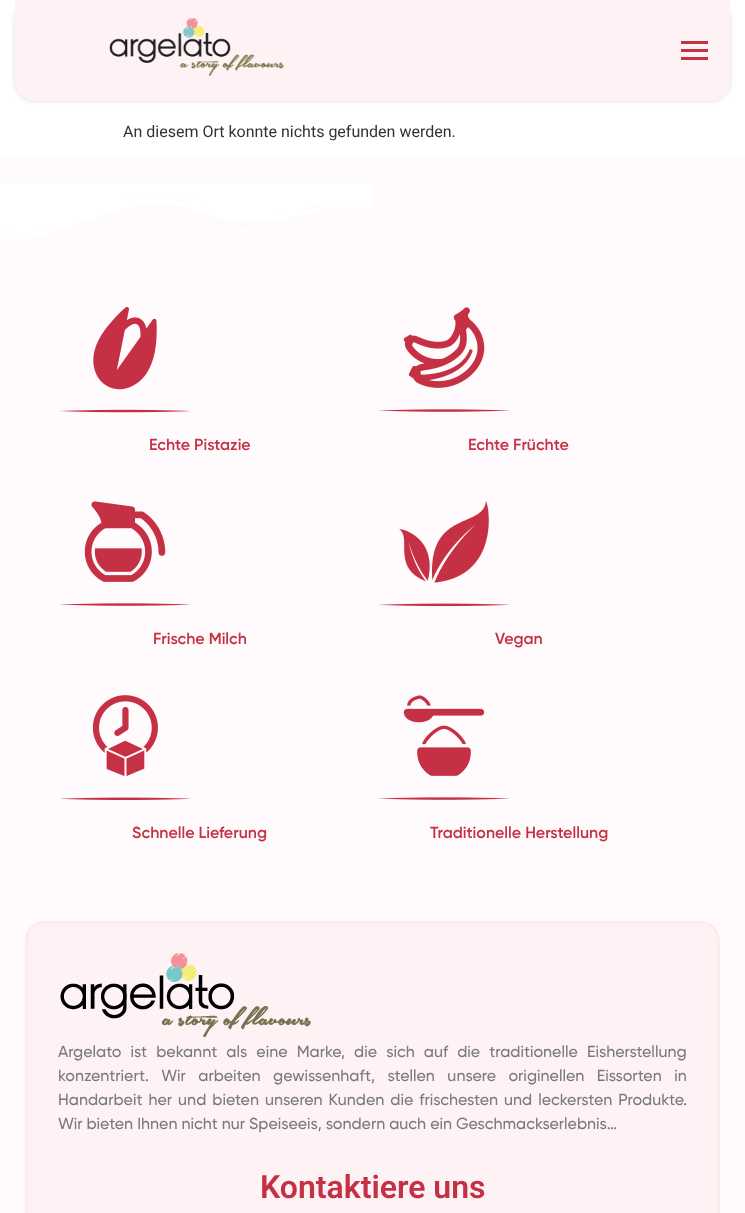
<!DOCTYPE html>
<meta charset="utf-8">
<style>body { margin: 0 } canvas { display: block }</style>
<canvas id="canvas" width="745" height="1213"></canvas>
<script type="module">
  const canvas = document.getElementById("canvas");
  const g = canvas.getContext("2d");
  g.miterLimit = 4;
  g.fontKerning = "normal";
  function drawText(s, x, y, [font, color]) {
    g.font = font;
    g.fillStyle = color;
    g.fillText(s, x, y);
  }
  function fillBox(x, y, w, h, color) {
    g.fillStyle = color;
    g.fillRect(x, y, w, h);
  }
  async function drawPicture(src, x, y, w, h) {
    const img = new Image();
    img.src = src;
    await img.decode();
    g.drawImage(img, x, y, w, h);
  }

  const s1 = ["16px Roboto", "#333333"];
  const s2 = ["600 16px Gilroy", "#C43144"];
  const s3 = ["500 16px Gilroy", "#7A7A7A"];
  const s4 = ["600 32px Roboto", "#C43144"];

  fillBox(0, 0, 745, 1213, "#FFFFFF");
  g.fillStyle = "rgba(0, 0, 0, 0.29)";
  g.filter = "blur(3px)";
  g.beginPath();
  g.roundRect(17, 2, 711, 97, 18);
  g.fill();
  g.filter = "none";
  g.fillStyle = "#FEF2F5";
  g.beginPath();
  g.roundRect(15, 0, 715, 101, [0, 0, 20, 20]);
  g.fill();
  await drawPicture("pic1.png", 109, 18, 175, 58);
  fillBox(681, 41, 27, 3, "#C43144");
  fillBox(681, 49, 27, 3, "#C43144");
  fillBox(681, 57, 27, 3, "#C43144");
  drawText("An diesem Ort konnte nichts gefunden werden.", 123, 137, s1);
  fillBox(0, 158, 745, 1055, "#FFFAFB");
  await drawPicture("pic2.png", 0, 183, 372, 66);
  await drawPicture("pic3.png", 59, 307, 132, 106);
  drawText("Echte Pistazie", 149, 450, s2);
  await drawPicture("pic4.png", 378, 307, 132, 106);
  drawText("Echte Früchte", 468, 450, s2);
  await drawPicture("pic5.png", 59, 501, 132, 106);
  drawText("Frische Milch", 153, 644, s2);
  await drawPicture("pic6.png", 378, 501, 132, 107);
  drawText("Vegan", 495, 644, s2);
  await drawPicture("pic7.png", 60, 695, 131, 106);
  drawText("Schnelle Lieferung", 132, 838, s2);
  await drawPicture("pic8.png", 378, 695, 132, 105);
  drawText("Traditionelle Herstellung", 430, 838, s2);
  g.fillStyle = "#FEF2F5";
  g.beginPath();
  g.roundRect(26.5, 922.5, 692, 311, 17.5);
  g.fill();
  g.strokeStyle = "#FFEBED";
  g.lineWidth = 3;
  g.stroke();
  await drawPicture("pic9.png", 60, 953, 251, 84);
  g.wordSpacing = "5.1px";
  drawText("Argelato ist bekannt als eine Marke, die sich auf die traditionelle Eisherstellung", 58, 1057, s3);
  g.wordSpacing = "8.5px";
  drawText("konzentriert. Wir arbeiten gewissenhaft, stellen unsere originellen Eissorten in", 58, 1081, s3);
  g.wordSpacing = "2px";
  drawText("Handarbeit her und bieten unseren Kunden die frischesten und leckersten Produkte.", 58, 1105, s3);
  g.wordSpacing = "0px";
  drawText("Wir bieten Ihnen nicht nur Speiseeis, sondern auch ein Geschmackserlebnis…", 58, 1129, s3);
  drawText("Kontaktiere uns", 260, 1198, s4);
</script>
